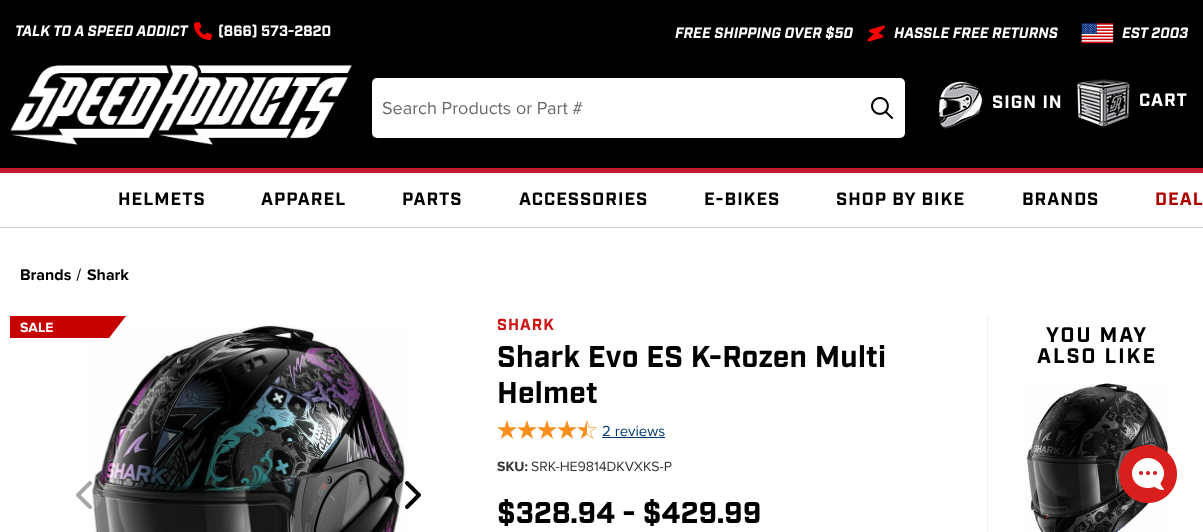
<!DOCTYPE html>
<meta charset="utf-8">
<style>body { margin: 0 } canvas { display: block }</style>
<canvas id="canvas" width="1203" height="532"></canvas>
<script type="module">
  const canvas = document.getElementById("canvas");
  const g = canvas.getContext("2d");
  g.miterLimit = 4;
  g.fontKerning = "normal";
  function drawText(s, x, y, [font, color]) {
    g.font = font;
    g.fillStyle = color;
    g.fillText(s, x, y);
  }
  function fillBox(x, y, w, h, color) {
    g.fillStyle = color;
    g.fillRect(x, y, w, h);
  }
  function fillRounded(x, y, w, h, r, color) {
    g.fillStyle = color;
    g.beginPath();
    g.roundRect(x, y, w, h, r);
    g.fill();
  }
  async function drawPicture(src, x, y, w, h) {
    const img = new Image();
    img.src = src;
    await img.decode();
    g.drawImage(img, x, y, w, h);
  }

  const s1 = ["italic bold 15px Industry", "#FFFFFF"];
  const s2 = ["bold 15px Industry", "#FFFFFF"];
  const s3 = ["18px Proxima Nova", "#6A6A6A"];
  const s4 = ["bold 18px Industry", "#FFFFFF"];
  const s5 = ["bold 18px Industry", "#000000"];
  const s6 = ["bold 18px Industry", "#AE0000"];
  const s7 = ["bold 16px Proxima Nova", "#000000"];
  const s8 = ["bold 14px Proxima Nova", "#FFFFFF"];
  const s9 = ["bold 16px Industry", "#CC1414"];
  const s10 = ["bold 30px Industry", "#000000"];
  const s11 = ["15px Proxima Nova", "#003A70"];
  const s12 = ["bold 14px Proxima Nova", "#333333"];
  const s13 = ["14px Proxima Nova", "#333333"];
  const s14 = ["bold 21px Industry", "#000000"];

  fillBox(0, 0, 1203, 532, "#FFFFFF");
  fillBox(0, 0, 1203, 168, "#000000");
  drawText("TALK TO A SPEED ADDICT", 15, 36, s1);
  await drawPicture("pic1.png", 194, 22, 18, 18);
  drawText("(866) 573-2820", 218, 36, s2);
  drawText("FREE SHIPPING OVER $50", 675, 38, s1);
  await drawPicture("pic2.png", 867, 25, 18, 17);
  drawText("HASSLE FREE RETURNS", 894, 38, s1);
  await drawPicture("pic3.png", 1081, 23, 33, 21);
  drawText("EST 2003", 1122, 38, s1);
  await drawPicture("pic4.png", 10, 65, 342, 80);
  fillRounded(372, 78, 533, 60, 5, "#FFFFFF");
  drawText("Search Products or Part #", 382, 114, s3);
  await drawPicture("pic5.png", 871, 97, 22, 22);
  await drawPicture("pic6.png", 938, 81, 45, 48);
  g.letterSpacing = "1px";
  drawText("SIGN IN", 992, 108, s4);
  await drawPicture("pic7.png", 1077, 79, 53, 48);
  drawText("CART", 1139, 106, s4);
  fillBox(0, 168, 1203, 5, "#C41830");
  fillBox(0, 227, 1203, 1, "#CCCCCC");
  drawText("HELMETS", 118, 205, s5);
  drawText("APPAREL", 261, 205, s5);
  drawText("PARTS", 402, 205, s5);
  drawText("ACCESSORIES", 519, 205, s5);
  drawText("E-BIKES", 704, 205, s5);
  drawText("SHOP BY BIKE", 836, 205, s5);
  drawText("BRANDS", 1022, 205, s5);
  drawText("DEAL", 1155, 205, s6);
  g.letterSpacing = "0px";
  drawText("Brands", 20, 280, s7);
  g.beginPath();
  g.moveTo(80, 268.5);
  g.lineTo(81, 268.5);
  g.lineTo(77.5, 281);
  g.lineTo(76.5, 280.5);
  g.closePath();
  g.fill();
  drawText("Shark", 87, 280, s7);
  await drawPicture("pic9.png", 91, 325, 316, 207);
  g.fillStyle = "#C70000";
  g.beginPath();
  g.moveTo(10, 316);
  g.lineTo(10, 338);
  g.lineTo(109, 338);
  g.lineTo(126, 316);
  g.closePath();
  g.fill();
  drawText("SALE", 20, 332, s8);
  g.fillStyle = "rgba(255, 255, 255, 0.17)";
  g.beginPath();
  g.arc(86, 495, 16, 0, Math.PI * 2);
  g.fill();
  await drawPicture("pic8.png", 76, 481, 16, 28);
  g.fillStyle = "rgba(255, 255, 255, 0.5)";
  g.beginPath();
  g.arc(411, 495, 16, 0, Math.PI * 2);
  g.fill();
  await drawPicture("pic10.png", 405, 481, 16, 28);
  g.letterSpacing = "1px";
  drawText("SHARK", 497, 330, s9);
  g.letterSpacing = "0.25px";
  drawText("Shark Evo ES K-Rozen Multi", 497, 367, s10);
  drawText("Helmet", 497, 403, s10);
  await drawPicture("pic11.png", 497, 420, 20, 19);
  await drawPicture("pic11.png", 517, 420, 20, 19);
  await drawPicture("pic11.png", 537, 420, 20, 19);
  await drawPicture("pic11.png", 557, 420, 20, 19);
  await drawPicture("pic12.png", 577, 420, 20, 19);
  g.letterSpacing = "0px";
  drawText("2 reviews", 602, 436, s11);
  fillBox(602, 437, 63, 1, "#003A70");
  drawText("SKU:", 497, 471, s12);
  drawText("SRK-HE9814DKVXKS-P", 531, 471, s13);
  drawText("$328.94 - $429.99", 497, 523, s10);
  fillBox(987, 316, 1, 216, "#EEEEEE");
  g.letterSpacing = "2px";
  drawText("YOU MAY", 1046, 342, s14);
  drawText("ALSO LIKE", 1037, 363, s14);
  await drawPicture("pic13.png", 1025, 383, 143, 149);
  await drawPicture("pic14.png", 1119, 445, 58, 58);
</script>
